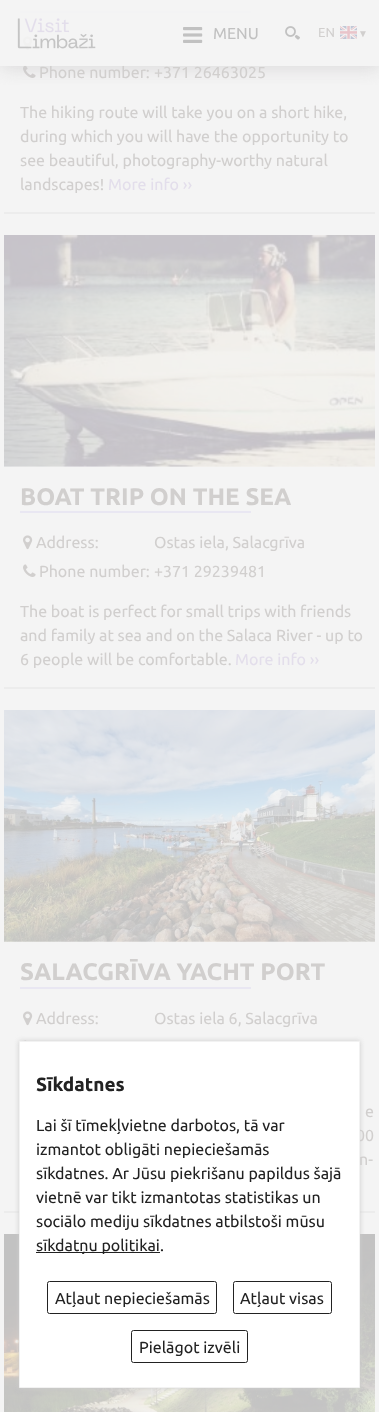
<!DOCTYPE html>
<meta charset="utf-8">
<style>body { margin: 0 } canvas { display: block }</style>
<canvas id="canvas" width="379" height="1412"></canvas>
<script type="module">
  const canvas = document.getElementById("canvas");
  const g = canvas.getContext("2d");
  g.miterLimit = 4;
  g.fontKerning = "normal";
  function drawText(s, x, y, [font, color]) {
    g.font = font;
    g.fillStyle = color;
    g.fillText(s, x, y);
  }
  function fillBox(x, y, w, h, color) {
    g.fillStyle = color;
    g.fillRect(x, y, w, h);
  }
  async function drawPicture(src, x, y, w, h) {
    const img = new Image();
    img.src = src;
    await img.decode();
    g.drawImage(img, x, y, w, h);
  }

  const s1 = ["16px Ubuntu", "#D1CFCE"];
  const s2 = ["16px Ubuntu", "#C1C1C1"];
  const s3 = ["13px Ubuntu", "#D1CFCE"];
  const s4 = ["10px Liberation Sans", "#D1CFCE"];
  const s5 = ["16px Ubuntu", "#E3DEEB"];
  const s6 = ["bold 24px Ubuntu", "#D1CFCE"];
  const s7 = ["bold 19px Ubuntu", "#222222"];
  const s8 = ["16px Ubuntu", "#222222"];

  fillBox(0, 0, 379, 1412, "#F4F4F4");
  fillBox(20, 11, 231, 2, "#E9E7F2");
  await drawPicture("pic5.png", 23, 36, 10, 15);
  await drawPicture("pic6.png", 23, 65, 13, 13);
  g.save();
  g.beginPath();
  g.rect(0, 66, 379, 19);
  g.clip();
  g.fillStyle = "rgba(206, 205, 206, 0.7)";
  g.filter = "blur(9px)";
  g.beginPath();
  g.rect(1, 2, 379, 66);
  g.fill();
  g.filter = "none";
  g.restore();
  drawText("Phone number:", 39, 78, s1);
  fillBox(20, 11, 231, 55, "rgba(244, 244, 244, 0.9)");
  await drawPicture("pic1.png", 17, 18, 79, 31);
  await drawPicture("pic2.png", 183, 27, 20, 16);
  drawText("MENU", 213, 39, s2);
  await drawPicture("pic3.png", 285, 26, 15, 14);
  drawText("EN", 318, 37, s3);
  await drawPicture("pic4.png", 340, 26, 17, 13);
  drawText("▼", 358, 37, s4);
  drawText("+371 26463025", 154, 78, s1);
  drawText("The hiking route will take you on a short hike,", 20, 118, s1);
  drawText("during which you will have the opportunity to", 20, 142, s1);
  drawText("see beautiful, photography-worthy natural", 20, 166, s1);
  drawText("landscapes!", 20, 190, s1);
  drawText("More info ››", 108, 190, s5);
  fillBox(4, 212, 371, 2, "#ECECEC");
  await drawPicture("pic7.png", 4, 235, 371, 232);
  drawText("BOAT TRIP ON THE SEA", 20, 505, s6);
  fillBox(20, 511, 231, 2, "#E9E7F2");
  await drawPicture("pic5.png", 23, 535, 10, 15);
  drawText("Address:", 36, 548, s1);
  drawText("Ostas iela, Salacgrīva", 154, 548, s1);
  await drawPicture("pic6.png", 23, 564, 13, 13);
  drawText("Phone number:", 39, 577, s1);
  drawText("+371 29239481", 154, 577, s1);
  drawText("The boat is perfect for small trips with friends", 20, 617, s1);
  drawText("and family at sea and on the Salaca River - up to", 20, 641, s1);
  drawText("6 people will be comfortable.", 20, 665, s1);
  drawText("More info ››", 235, 665, s5);
  fillBox(4, 687, 371, 2, "#ECECEC");
  await drawPicture("pic8.png", 4, 710, 371, 232);
  drawText("SALACGRĪVA YACHT PORT", 20, 980, s6);
  fillBox(20, 987, 231, 2, "#E9E7F2");
  await drawPicture("pic5.png", 23, 1011, 10, 15);
  drawText("Address:", 36, 1024, s1);
  drawText("Ostas iela 6, Salacgrīva", 154, 1024, s1);
  await drawPicture("pic9.png", 24, 1040, 3, 1);
  drawText("e", 365, 1117, s1);
  drawText("00", 356, 1141, s1);
  drawText("n-", 359, 1165, s1);
  fillBox(4, 1211, 371, 2, "#ECECEC");
  await drawPicture("pic10.png", 4, 1234, 371, 178);
  g.fillStyle = "#CCCCCC";
  g.filter = "blur(2.5px)";
  g.beginPath();
  g.rect(19, 1041, 341, 347);
  g.fill();
  g.filter = "none";
  g.fillStyle = "#FFFFFF";
  g.beginPath();
  g.rect(19.5, 1041.5, 340, 346);
  g.fill();
  g.strokeStyle = "#F2F2F2";
  g.stroke();
  drawText("Sīkdatnes", 36, 1091, s7);
  drawText("Lai šī tīmekļvietne darbotos, tā var", 36, 1131, s8);
  drawText("izmantot obligāti nepieciešamās", 36, 1155, s8);
  drawText("sīkdatnes. Ar Jūsu piekrišanu papildus šajā", 36, 1179, s8);
  drawText("vietnē var tikt izmantotas statistikas un", 36, 1203, s8);
  drawText("sociālo mediju sīkdatnes atbilstoši mūsu", 36, 1227, s8);
  fillBox(36, 1252, 124, 1, "#222222");
  drawText("sīkdatņu politikai.", 36, 1251, s8);
  g.beginPath();
  g.roundRect(47.5, 1281.5, 169, 32, 2);
  g.strokeStyle = "#222222";
  g.stroke();
  drawText("Atļaut nepieciešamās", 55, 1304, s8);
  g.beginPath();
  g.roundRect(233.5, 1281.5, 98, 32, 2);
  g.stroke();
  drawText("Atļaut visas", 240, 1304, s8);
  g.beginPath();
  g.roundRect(131.5, 1330.5, 116, 32, 2);
  g.stroke();
  drawText("Pielāgot izvēli", 139, 1353, s8);
</script>
